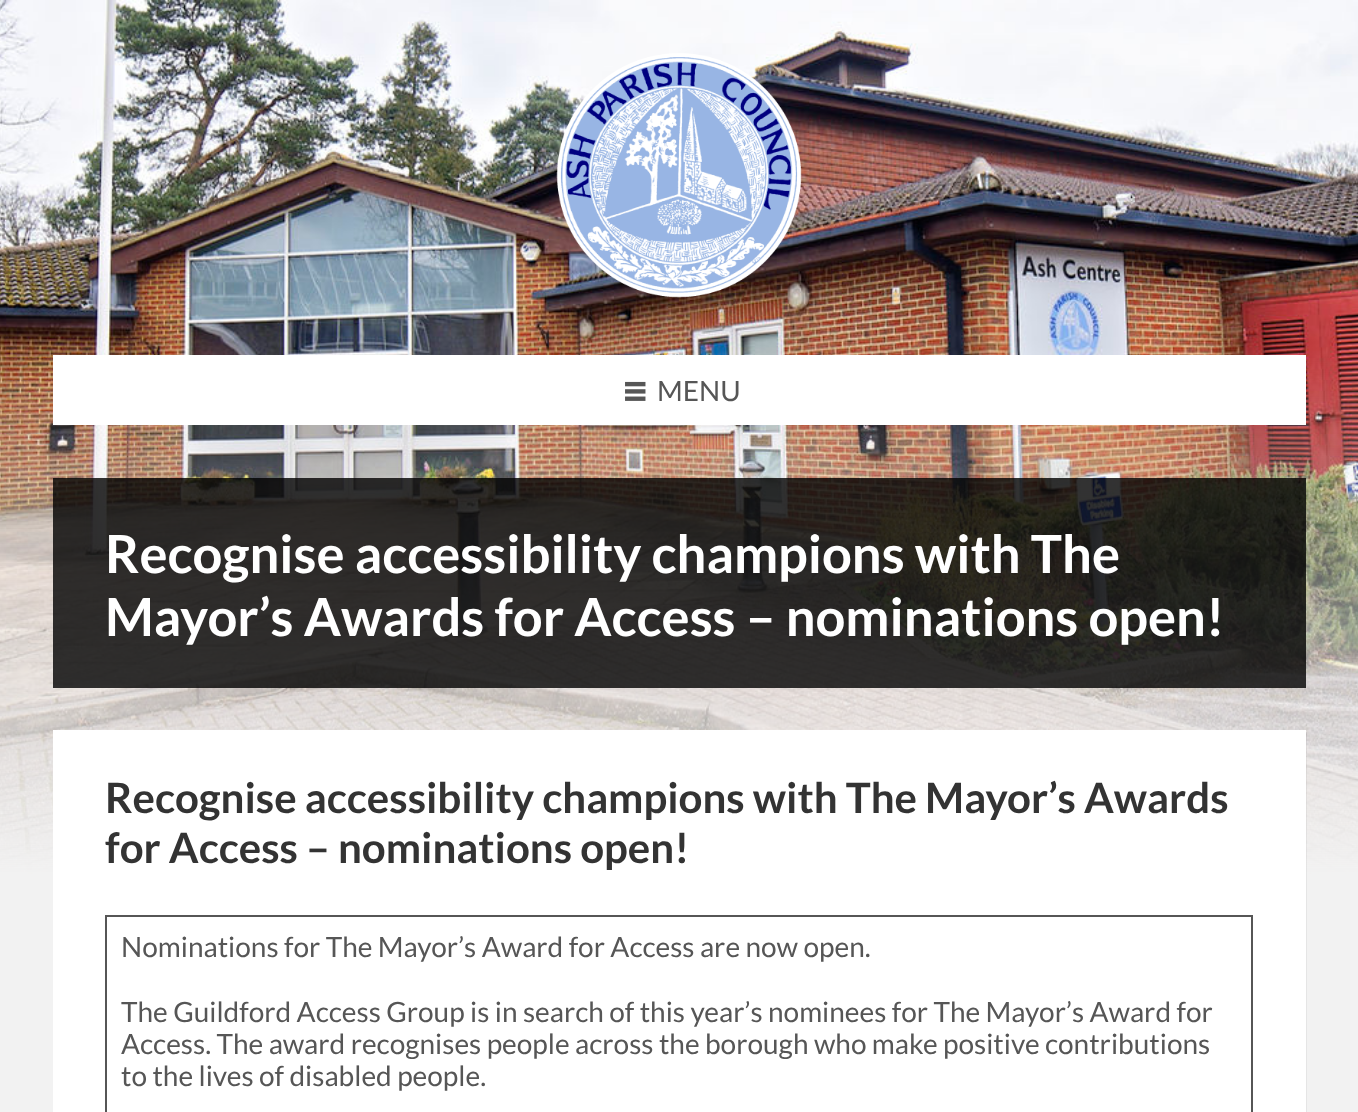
<!DOCTYPE html>
<meta charset="utf-8">
<style>body { margin: 0 } canvas { display: block }</style>
<canvas id="canvas" width="1358" height="1112"></canvas>
<script type="module">
  const canvas = document.getElementById("canvas");
  const g = canvas.getContext("2d");
  g.miterLimit = 4;
  g.fontKerning = "normal";
  function drawText(s, x, y, [font, color]) {
    g.font = font;
    g.fillStyle = color;
    g.fillText(s, x, y);
  }
  function fillBox(x, y, w, h, color) {
    g.fillStyle = color;
    g.fillRect(x, y, w, h);
  }
  async function drawPicture(src, x, y, w, h) {
    const img = new Image();
    img.src = src;
    await img.decode();
    g.drawImage(img, x, y, w, h);
  }

  const s1 = ["28px Lato", "#565656"];
  const s2 = ["bold 52.5px Lato", "#FFFFFF"];
  const s3 = ["bold 42px Lato", "#333333"];

  fillBox(0, 0, 1358, 1112, "#F2F2F2");
  await drawPicture("pic1.png", 0, 0, 1358, 875);
  await drawPicture("pic2.png", 556, 53, 246, 245);
  fillBox(53, 355, 1253, 70, "#FFFFFF");
  await drawPicture("pic3.png", 625, 381, 21, 20);
  drawText("MENU", 657, 401, s1);
  fillBox(53, 478, 1253, 210, "rgba(0, 0, 0, 0.8)");
  drawText("Recognise accessibility champions with The", 105, 573, s2);
  drawText("Mayor’s Awards for Access – nominations open!", 105, 636, s2);
  g.fillStyle = "rgba(0, 0, 0, 0.05)";
  g.beginPath();
  g.moveTo(54, 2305);
  g.lineTo(54, 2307);
  g.lineTo(1307, 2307);
  g.lineTo(1307, 732);
  g.lineTo(1306, 732);
  g.lineTo(1306, 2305);
  g.closePath();
  g.fill();
  fillBox(53, 730, 1253, 382, "#FFFFFF");
  drawText("Recognise accessibility champions with The Mayor’s Awards", 105, 813, s3);
  drawText("for Access – nominations open!", 105, 863, s3);
  fillBox(105, 915, 1148, 2, "#565656");
  fillBox(1251, 915, 2, 197, "#565656");
  fillBox(105, 915, 2, 197, "#565656");
  drawText("Nominations for The Mayor’s Award for Access are now open.", 121, 957, s1);
  drawText("The Guildford Access Group is in search of this year’s nominees for The Mayor’s Award for", 121, 1022, s1);
  drawText("Access. The award recognises people across the borough who make positive contributions", 121, 1054, s1);
  drawText("to the lives of disabled people.", 121, 1086, s1);
</script>
